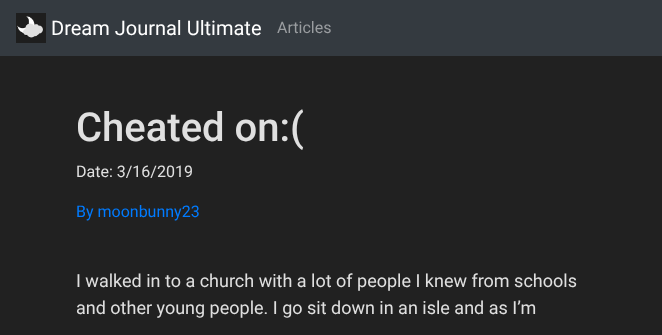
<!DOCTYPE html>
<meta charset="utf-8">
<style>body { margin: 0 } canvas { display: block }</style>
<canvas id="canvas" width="662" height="335"></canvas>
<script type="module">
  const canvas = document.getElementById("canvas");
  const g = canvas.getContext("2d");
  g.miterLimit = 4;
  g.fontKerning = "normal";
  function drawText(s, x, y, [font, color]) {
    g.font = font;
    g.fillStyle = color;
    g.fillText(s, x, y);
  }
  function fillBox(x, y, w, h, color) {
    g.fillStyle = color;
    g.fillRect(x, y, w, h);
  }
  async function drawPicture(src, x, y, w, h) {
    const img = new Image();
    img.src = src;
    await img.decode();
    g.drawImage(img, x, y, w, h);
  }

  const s1 = ["20px Roboto", "#FFFFFF"];
  const s2 = ["16px Roboto", "#9A9DA0"];
  const s3 = ["500 40px Roboto", "#E0E0E0"];
  const s4 = ["16px Roboto", "#E0E0E0"];
  const s5 = ["16px Roboto", "#007BFF"];
  const s6 = ["18px Roboto", "#E0E0E0"];

  fillBox(0, 0, 662, 335, "#212121");
  fillBox(0, 0, 662, 56, "#343A40");
  await drawPicture("pic1.png", 16, 13, 30, 30);
  drawText("Dream Journal Ultimate", 51, 35, s1);
  drawText("Articles", 277, 33, s2);
  drawText("Cheated on:(", 76, 141, s3);
  drawText("Date: 3/16/2019", 76, 177, s4);
  drawText("By moonbunny23", 76, 217, s5);
  drawText("I walked in to a church with a lot of people I knew from schools", 76, 287, s6);
  drawText("and other young people. I go sit down in an isle and as I’m", 76, 314, s6);
</script>
